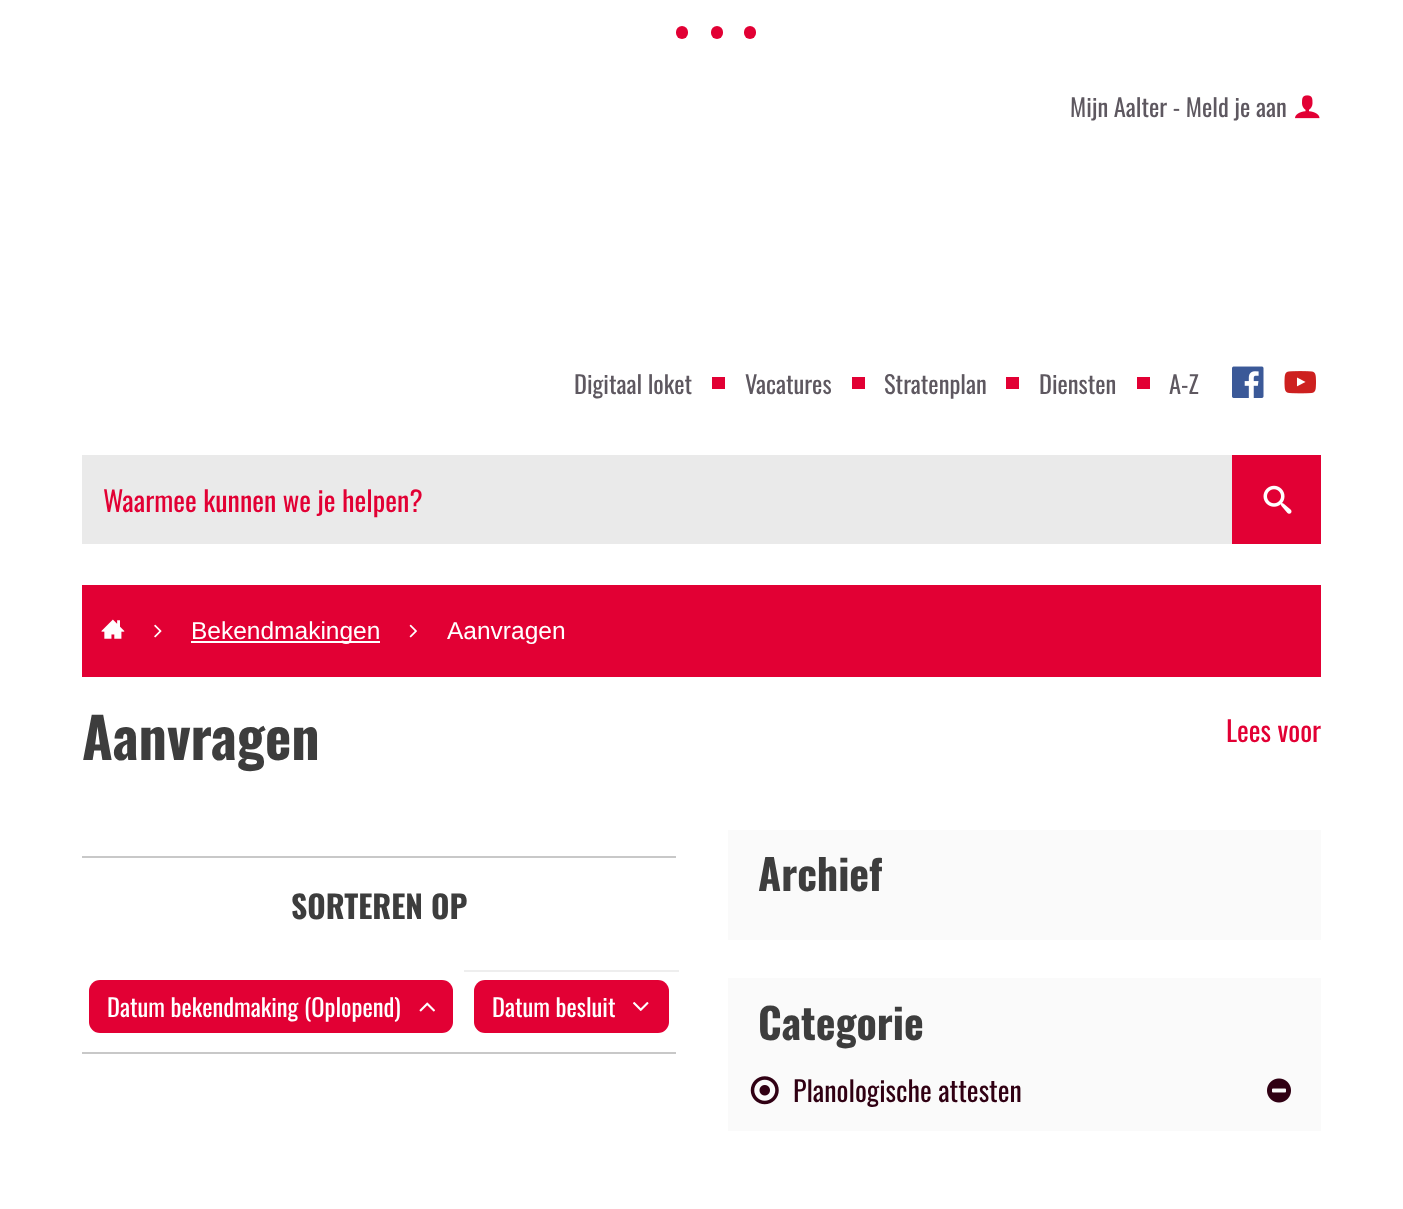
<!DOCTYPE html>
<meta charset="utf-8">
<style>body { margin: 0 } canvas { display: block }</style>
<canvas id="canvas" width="1403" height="1209"></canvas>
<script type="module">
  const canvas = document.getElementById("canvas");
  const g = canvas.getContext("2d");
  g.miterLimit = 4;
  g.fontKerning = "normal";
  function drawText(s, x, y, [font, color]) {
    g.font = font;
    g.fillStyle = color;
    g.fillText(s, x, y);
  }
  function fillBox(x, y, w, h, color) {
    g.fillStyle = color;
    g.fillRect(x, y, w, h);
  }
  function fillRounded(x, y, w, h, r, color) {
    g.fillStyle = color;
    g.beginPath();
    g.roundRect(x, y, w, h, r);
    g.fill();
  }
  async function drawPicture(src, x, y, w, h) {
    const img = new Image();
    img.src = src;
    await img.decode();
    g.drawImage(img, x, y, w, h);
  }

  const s1 = ["24.5px Oswald", "#5E5860"];
  const s2 = ["28px Oswald", "#E20034"];
  const s3 = ["24.5px Liberation Sans", "#FFFFFF"];
  const s4 = ["bold 56px Oswald", "#3D3D3D"];
  const s5 = ["bold 31.5px Oswald", "#3D3D3D"];
  const s6 = ["24.5px Oswald", "#FFFFFF"];
  const s7 = ["bold 42px Oswald", "#3D3D3D"];
  const s8 = ["28px Oswald", "#300013"];

  fillBox(0, 0, 1403, 1209, "#FFFFFF");
  fillRounded(676, 26, 12, 13, 6, "#E20034");
  fillRounded(711, 26, 12, 13, 6, "#E20034");
  fillRounded(744, 26, 12, 13, 6, "#E20034");
  drawText("Mijn Aalter - Meld je aan", 1070, 117, s1);
  await drawPicture("pic1.png", 1295, 95, 25, 24);
  drawText("Digitaal loket", 574, 394, s1);
  fillBox(712, 377, 13, 12, "#E20034");
  drawText("Vacatures", 745, 394, s1);
  fillBox(852, 377, 13, 12, "#E20034");
  drawText("Stratenplan", 884, 394, s1);
  fillBox(1006, 377, 13, 12, "#E20034");
  drawText("Diensten", 1039, 394, s1);
  fillBox(1137, 377, 13, 12, "#E20034");
  drawText("A-Z", 1169, 394, s1);
  await drawPicture("pic2.png", 1232, 366, 32, 32);
  await drawPicture("pic3.png", 1284, 371, 32, 23);
  fillBox(82, 455, 1150, 89, "#EAEAEA");
  drawText("Waarmee kunnen we je helpen?", 103, 512, s2);
  fillBox(1232, 455, 89, 89, "#E20034");
  await drawPicture("pic4.png", 1263, 485, 29, 29);
  fillBox(82, 585, 1239, 92, "#E20034");
  await drawPicture("pic5.png", 101, 619, 24, 20);
  await drawPicture("pic6.png", 154, 624, 8, 14);
  fillBox(191, 641, 189, 2, "#FFFFFF");
  drawText("Bekendmakingen", 191, 639, s3);
  await drawPicture("pic7.png", 409, 624, 8, 14);
  drawText("Aanvragen", 447, 639, s3);
  drawText("Aanvragen", 82, 760, s4);
  drawText("Lees voor", 1226, 742, s2);
  fillBox(82, 856, 594, 2, "#C8C8C8");
  fillBox(82, 1052, 594, 2, "#C8C8C8");
  drawText("SORTEREN OP", 291, 919, s5);
  fillRounded(89, 980, 364, 53, 11, "#E20034");
  drawText("Datum bekendmaking (Oplopend)", 107, 1017, s6);
  await drawPicture("pic8.png", 419, 1002, 16, 10);
  fillBox(464, 970, 215, 2, "#EEEEEE");
  fillRounded(474, 980, 195, 53, 11, "#E20034");
  drawText("Datum besluit", 492, 1017, s6);
  await drawPicture("pic9.png", 633, 1002, 16, 9);
  g.fillStyle = "#FAFAFA";
  g.beginPath();
  g.rect(729, 831, 591, 108);
  g.fill();
  g.strokeStyle = "#FAFAFA";
  g.lineWidth = 2;
  g.stroke();
  drawText("Archief", 758, 891, s7);
  g.fillStyle = "#FAFAFA";
  g.beginPath();
  g.rect(729, 979, 591, 151);
  g.fill();
  g.stroke();
  drawText("Categorie", 758, 1040, s7);
  await drawPicture("pic10.png", 750, 1076, 29, 29);
  drawText("Planologische attesten", 793, 1102, s8);
  await drawPicture("pic11.png", 1267, 1078, 24, 25);
</script>
